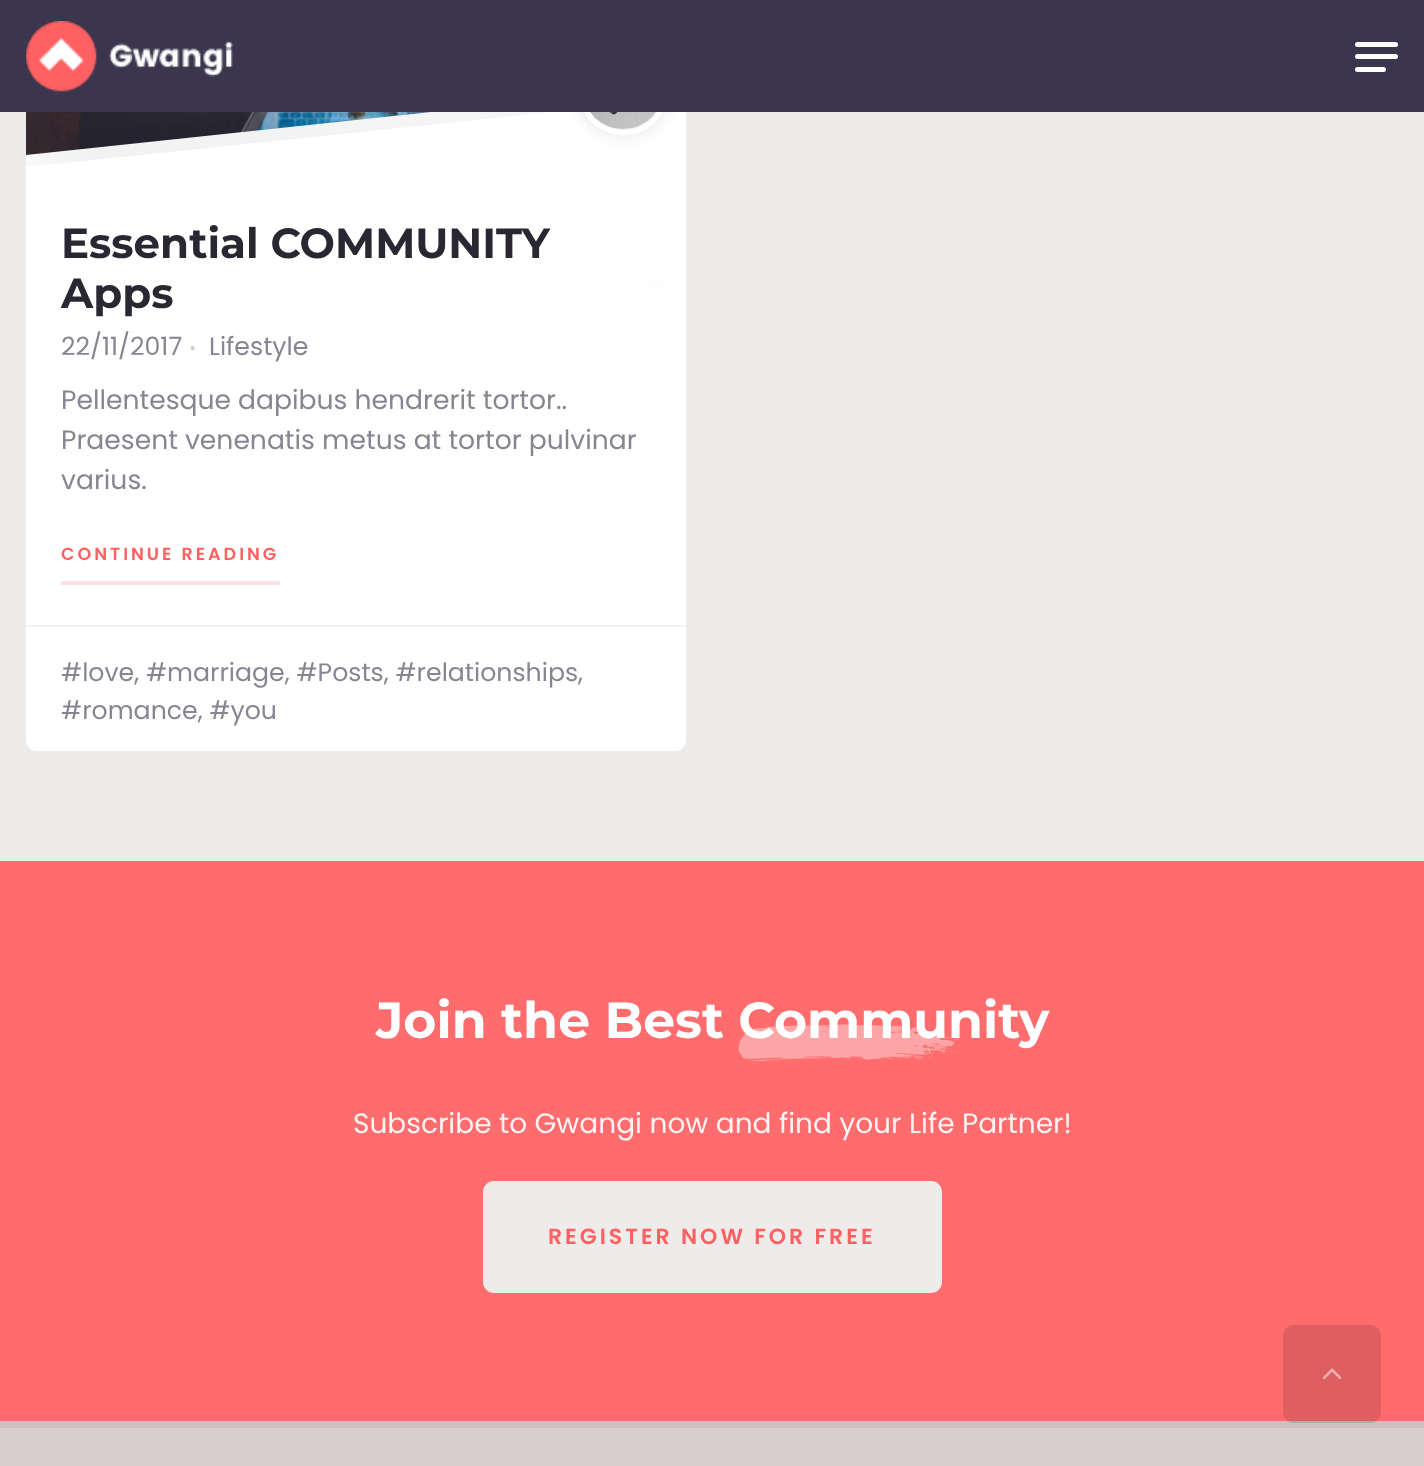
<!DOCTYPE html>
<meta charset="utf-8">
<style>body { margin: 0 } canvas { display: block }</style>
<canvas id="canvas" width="1424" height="1466"></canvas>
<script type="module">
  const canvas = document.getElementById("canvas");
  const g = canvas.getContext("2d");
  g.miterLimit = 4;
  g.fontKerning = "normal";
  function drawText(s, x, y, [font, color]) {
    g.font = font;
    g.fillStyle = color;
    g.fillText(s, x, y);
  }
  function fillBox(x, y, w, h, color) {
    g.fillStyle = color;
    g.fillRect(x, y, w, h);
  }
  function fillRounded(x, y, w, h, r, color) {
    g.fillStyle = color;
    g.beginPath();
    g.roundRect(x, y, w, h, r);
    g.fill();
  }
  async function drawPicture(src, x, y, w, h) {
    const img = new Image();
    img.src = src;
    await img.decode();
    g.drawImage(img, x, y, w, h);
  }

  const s1 = ["bold 42px Montserrat", "#2A2733"];
  const s2 = ["25.2px Poppins", "#888491"];
  const s3 = ["17.5px Poppins", "#CFCED3"];
  const s4 = ["26.6px Poppins", "#888491"];
  const s5 = ["600 17.5px Poppins", "#FF6162"];
  const s6 = ["bold 50.6px Montserrat", "#FFFFFF"];
  const s7 = ["28px Poppins", "#FFF3F3"];
  const s8 = ["600 22px Poppins", "#FF6162"];

  fillBox(0, 0, 1424, 1466, "#F0EBEB");
  await drawPicture("pic2.png", 26, 112, 406, 43);
  fillRounded(26, 184, 660, 567, 11, "#FFFFFF");
  g.save();
  g.beginPath();
  g.roundRect(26, -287, 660, 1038, 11);
  g.clip();
  g.fillStyle = "rgba(0, 0, 0, 0.05)";
  g.filter = "blur(31.5px)";
  g.beginPath();
  g.rect(33, 82, 660, 149);
  g.fill();
  g.filter = "none";
  g.restore();
  g.beginPath();
  g.moveTo(26, 335);
  g.lineTo(26, 155);
  g.lineTo(686, 85);
  g.lineTo(686, 265);
  g.closePath();
  g.fill();
  g.save();
  g.beginPath();
  g.roundRect(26, -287, 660, 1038, 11);
  g.clip();
  g.fillStyle = "rgba(0, 0, 0, 0.05)";
  g.filter = "blur(31.5px)";
  g.beginPath();
  g.rect(33, 95, 660, 148);
  g.fill();
  g.filter = "none";
  g.restore();
  g.beginPath();
  g.moveTo(26, 347);
  g.lineTo(26, 167);
  g.lineTo(686, 98);
  g.lineTo(686, 277);
  g.closePath();
  g.fill();
  g.fillStyle = "rgba(0, 0, 0, 0.1)";
  g.filter = "blur(9px)";
  g.beginPath();
  g.roundRect(578, 44, 91, 91, 45.5);
  g.fill();
  g.filter = "none";
  g.beginPath();
  g.arc(623.5, 89.5, 43, 0, Math.PI * 2);
  g.strokeStyle = "#FFFFFF";
  g.lineWidth = 5;
  g.stroke();
  fillBox(0, 0, 1424, 112, "#3B354D");
  await drawPicture("pic1.png", 26, 21, 207, 72);
  fillRounded(1355, 54, 43, 5, 2.5, "#FFFFFF");
  fillRounded(1355, 42, 43, 5, 2.5, "#FFFFFF");
  fillRounded(1355, 67, 31, 5, 2.5, "#FFFFFF");
  drawText("Essential COMMUNITY", 61, 258, s1);
  drawText("Apps", 61, 308, s1);
  await drawPicture("pic3.png", 590, 112, 66, 17);
  drawText("22/11/2017", 61, 355, s2);
  drawText("•", 189, 354, s3);
  drawText("Lifestyle", 209, 355, s2);
  drawText("Pellentesque dapibus hendrerit tortor..", 61, 409, s4);
  drawText("Praesent venenatis metus at tortor pulvinar", 61, 449, s4);
  drawText("varius.", 61, 489, s4);
  g.letterSpacing = "3px";
  drawText("CONTINUE READING", 61, 560, s5);
  fillBox(61, 581, 219, 4, "#FFDFE0");
  fillBox(26, 625, 660, 2, "#F2F2F3");
  g.letterSpacing = "0px";
  drawText("#love, #marriage, #Posts, #relationships,", 61, 681, s2);
  drawText("#romance, #you", 61, 719, s2);
  fillBox(0, 861, 1424, 560, "#FE6C6D");
  await drawPicture("pic4.png", 738, 1024, 226, 38);
  drawText("Join the Best Community", 376, 1038, s6);
  drawText("Subscribe to Gwangi now and find your Life Partner!", 353, 1133, s7);
  g.fillStyle = "#F0EBEB";
  g.beginPath();
  g.roundRect(485, 1183, 455, 108, 9);
  g.fill();
  g.strokeStyle = "#F0EBEB";
  g.lineWidth = 4;
  g.stroke();
  g.letterSpacing = "3px";
  drawText("REGISTER NOW FOR FREE", 548, 1244, s8);
  fillBox(0, 1421, 1424, 7, "#CFBFBF");
  fillBox(0, 1428, 1424, 38, "#DACECE");
  fillRounded(1283, 1325, 98, 98, 11, "rgba(0, 0, 0, 0.12)");
  await drawPicture("pic5.png", 1322, 1368, 20, 12);
</script>
